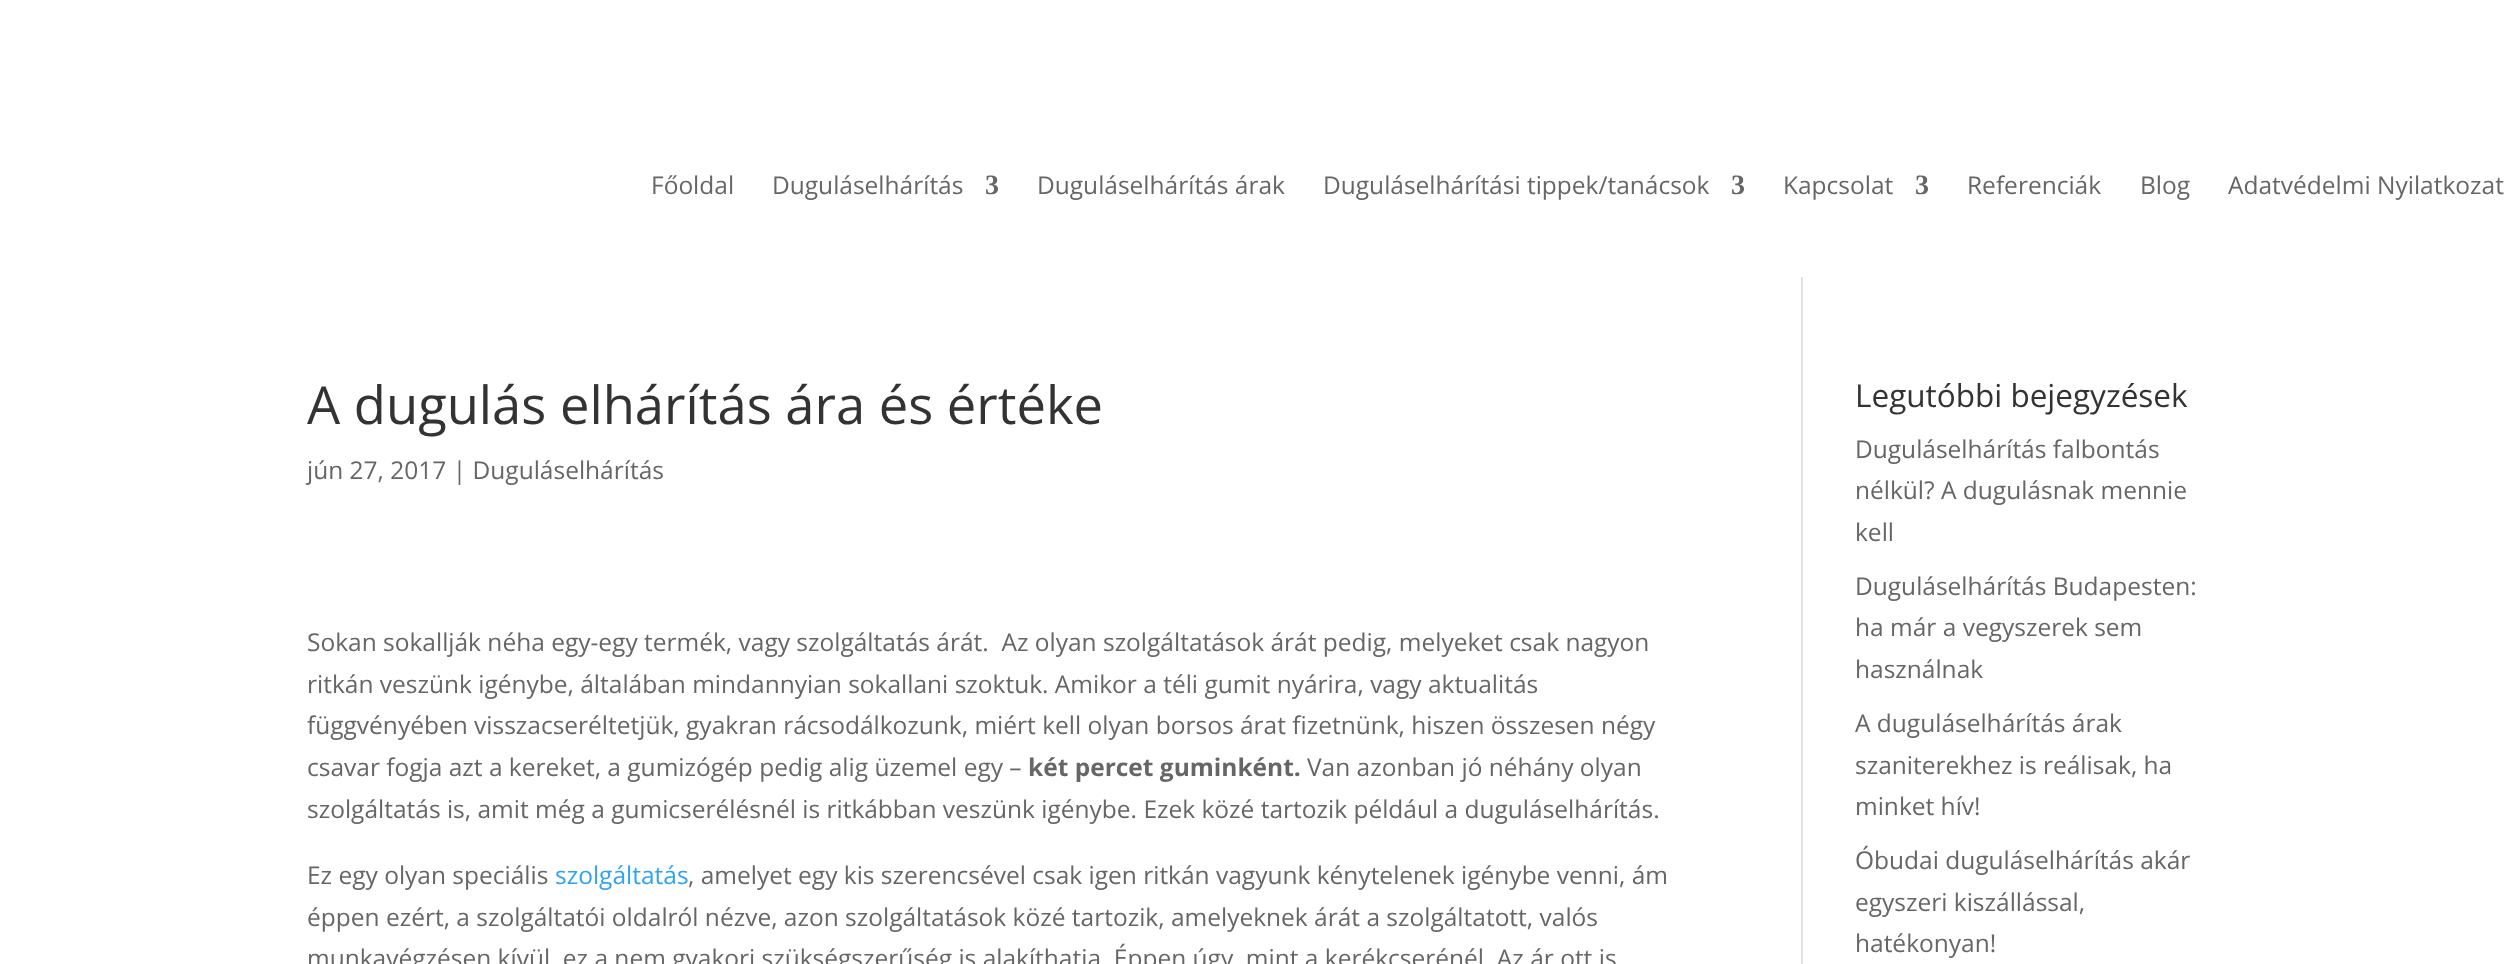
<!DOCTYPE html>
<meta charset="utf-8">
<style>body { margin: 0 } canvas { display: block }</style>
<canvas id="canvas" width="2504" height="964"></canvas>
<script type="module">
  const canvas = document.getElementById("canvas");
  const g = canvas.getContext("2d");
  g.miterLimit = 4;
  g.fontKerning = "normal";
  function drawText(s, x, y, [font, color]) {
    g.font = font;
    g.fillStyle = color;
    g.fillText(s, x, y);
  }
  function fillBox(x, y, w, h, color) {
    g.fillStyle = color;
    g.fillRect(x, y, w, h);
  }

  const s1 = ["24.5px Open Sans", "#666666"];
  const s2 = ["bold 28px Liberation Serif", "#666666"];
  const s3 = ["52.5px Open Sans", "#333333"];
  const s4 = ["bold 24.5px Open Sans", "#666666"];
  const s5 = ["24.5px Open Sans", "#2EA3F2"];
  const s6 = ["31.5px Open Sans", "#333333"];

  fillBox(0, 0, 2504, 964, "#FFFFFF");
  drawText("Főoldal", 651, 194, s1);
  drawText("Duguláselhárítás", 772, 194, s1);
  drawText("3", 985, 194, s2);
  drawText("Duguláselhárítás árak", 1037, 194, s1);
  drawText("Duguláselhárítási tippek/tanácsok", 1323, 194, s1);
  drawText("3", 1731, 194, s2);
  drawText("Kapcsolat", 1783, 194, s1);
  drawText("3", 1915, 194, s2);
  drawText("Referenciák", 1967, 194, s1);
  drawText("Blog", 2140, 194, s1);
  drawText("Adatvédelmi Nyilatkozat", 2228, 194, s1);
  fillBox(1801, 277, 2, 687, "#E2E2E2");
  drawText("A dugulás elhárítás ára és értéke", 307, 424, s3);
  drawText("jún 27, 2017 | Duguláselhárítás", 307, 479, s1);
  drawText("Sokan sokallják néha egy-egy termék, vagy szolgáltatás árát.  Az olyan szolgáltatások árát pedig, melyeket csak nagyon", 307, 651, s1);
  drawText("ritkán veszünk igénybe, általában mindannyian sokallani szoktuk. Amikor a téli gumit nyárira, vagy aktualitás", 307, 693, s1);
  drawText("függvényében visszacseréltetjük, gyakran rácsodálkozunk, miért kell olyan borsos árat fizetnünk, hiszen összesen négy", 307, 734, s1);
  drawText("csavar fogja azt a kereket, a gumizógép pedig alig üzemel egy –", 307, 776, s1);
  drawText("két percet guminként.", 1028, 776, s4);
  drawText("Van azonban jó néhány olyan", 1307, 776, s1);
  drawText("szolgáltatás is, amit még a gumicserélésnél is ritkábban veszünk igénybe. Ezek közé tartozik például a duguláselhárítás.", 307, 818, s1);
  drawText("Ez egy olyan speciális", 307, 884, s1);
  drawText("szolgáltatás", 555, 884, s5);
  drawText(", amelyet egy kis szerencsével csak igen ritkán vagyunk kénytelenek igénybe venni, ám", 688, 884, s1);
  drawText("éppen ezért, a szolgáltatói oldalról nézve, azon szolgáltatások közé tartozik, amelyeknek árát a szolgáltatott, valós", 307, 926, s1);
  drawText("munkavégzésen kívül, ez a nem gyakori szükségszerűség is alakíthatja. Éppen úgy, mint a kerékcserénél. Az ár ott is", 307, 967, s1);
  drawText("Legutóbbi bejegyzések", 1855, 407, s6);
  drawText("Duguláselhárítás falbontás", 1855, 458, s1);
  drawText("nélkül? A dugulásnak mennie", 1855, 499, s1);
  drawText("kell", 1855, 541, s1);
  drawText("Duguláselhárítás Budapesten:", 1855, 595, s1);
  drawText("ha már a vegyszerek sem", 1855, 636, s1);
  drawText("használnak", 1855, 678, s1);
  drawText("A duguláselhárítás árak", 1855, 732, s1);
  drawText("szaniterekhez is reálisak, ha", 1855, 774, s1);
  drawText("minket hív!", 1855, 815, s1);
  drawText("Óbudai duguláselhárítás akár", 1855, 869, s1);
  drawText("egyszeri kiszállással,", 1855, 911, s1);
  drawText("hatékonyan!", 1855, 952, s1);
</script>
